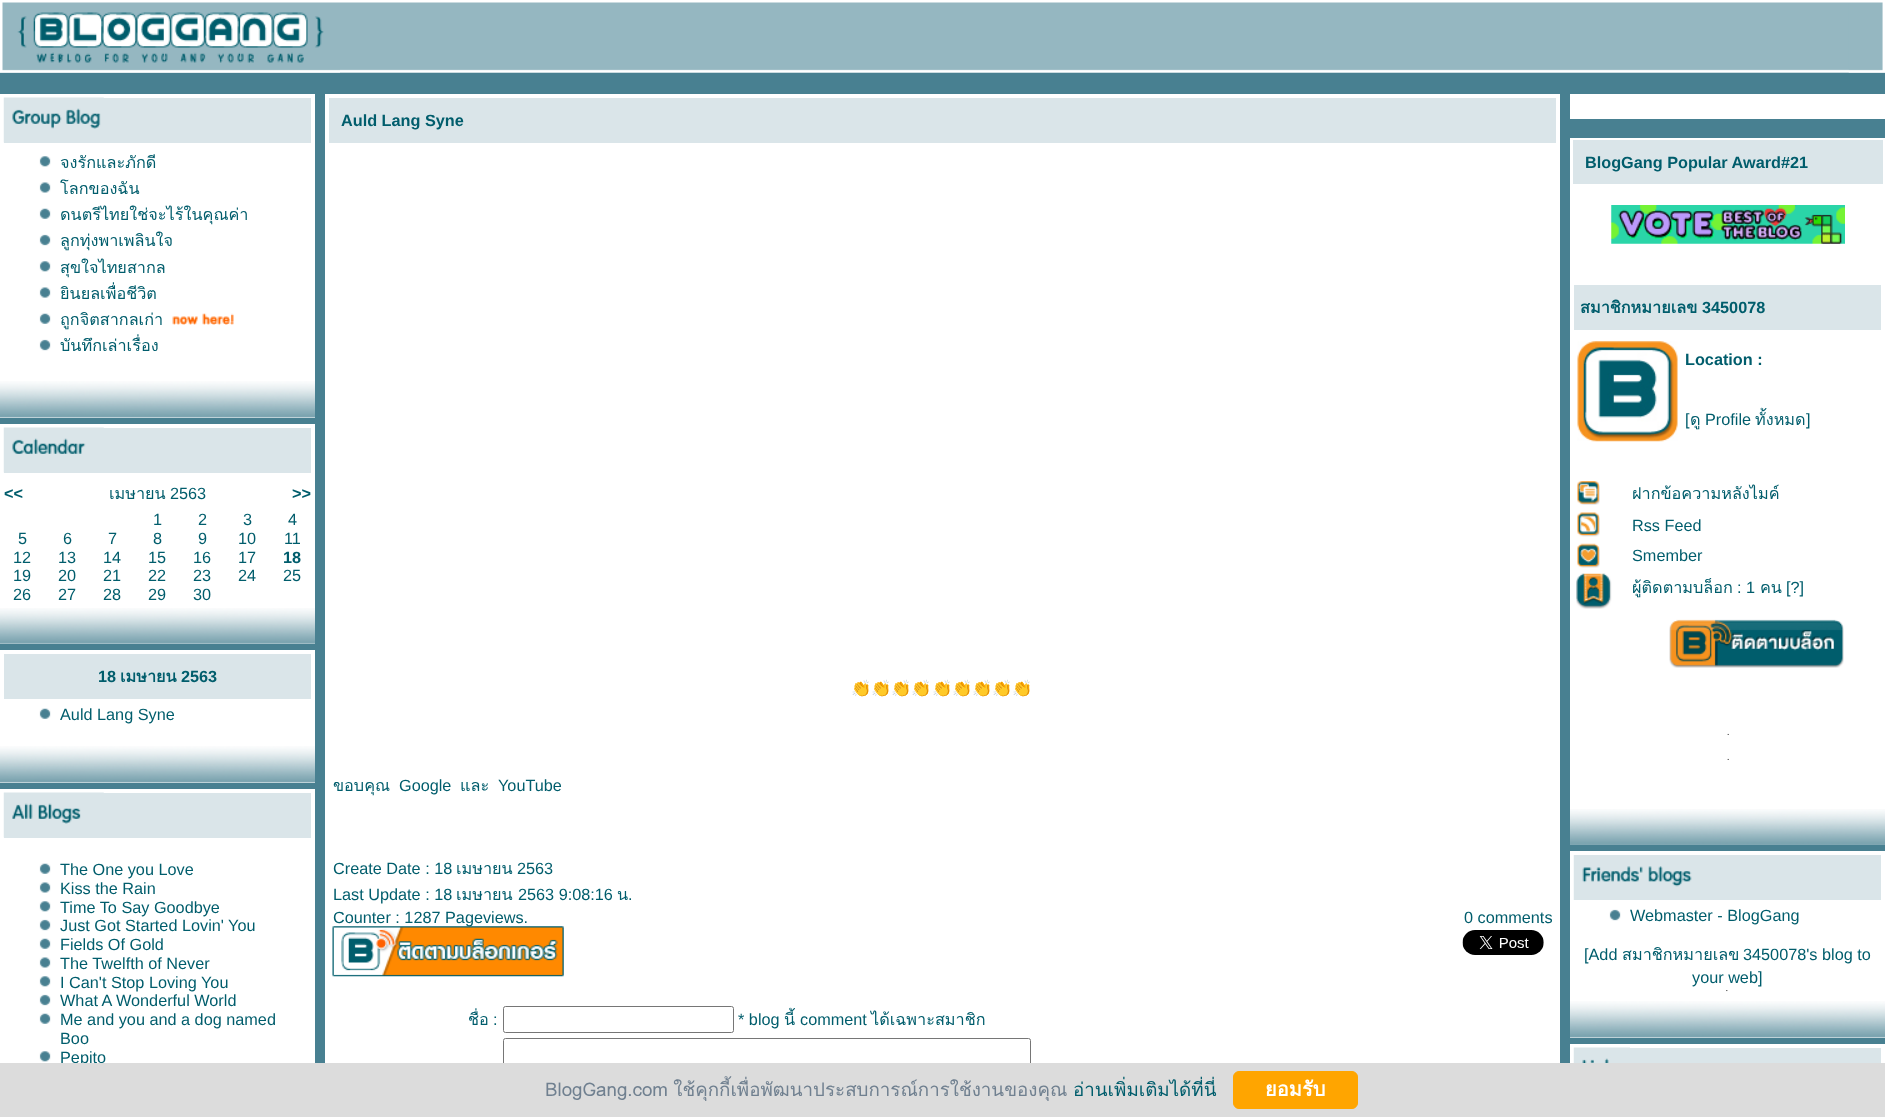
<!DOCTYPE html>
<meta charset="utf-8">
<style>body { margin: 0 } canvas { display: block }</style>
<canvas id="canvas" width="1885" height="1117"></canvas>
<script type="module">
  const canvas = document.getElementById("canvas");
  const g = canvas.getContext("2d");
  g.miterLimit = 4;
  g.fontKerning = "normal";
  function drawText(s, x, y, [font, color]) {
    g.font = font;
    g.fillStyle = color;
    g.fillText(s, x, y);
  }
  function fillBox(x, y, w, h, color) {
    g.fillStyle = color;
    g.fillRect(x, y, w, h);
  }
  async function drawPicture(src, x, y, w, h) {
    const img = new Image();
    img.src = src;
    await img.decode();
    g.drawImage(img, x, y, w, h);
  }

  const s1 = ["16.25px Loma", "#005D6C"];
  const s2 = ["bold 16.25px Liberation Sans", "#005D6C"];
  const s3 = ["16.25px Liberation Sans", "#005D6C"];
  const s4 = ["bold 16.25px Loma", "#005D6C"];
  const s5 = ["16.25px Noto Color Emoji", "#005D6C"];
  const s6 = ["18.75px Loma", "#708090"];
  const s7 = ["18.75px Loma", "#005D6C"];
  const s8 = ["bold 20px Loma", "#FFFFFF"];

  fillBox(0, 0, 1885, 1117, "#488091");
  fillBox(0, 72, 1885, 1, "#95B7C1");
  await drawPicture("pic1.png", 0, 0, 1885, 73);
  await drawPicture("pic2.png", 0, 2, 340, 71);
  await drawPicture("pic3.png", 1848, 2, 37, 71);
  fillBox(0, 94, 315, 324, "#FFFFFF");
  fillBox(4, 98, 307, 45, "#DAE5E9");
  await drawPicture("pic4.png", 3, 97, 101, 46);
  await drawPicture("pic5.png", 39, 156, 12, 11);
  drawText("จงรักและภักดี", 60, 168, s1);
  await drawPicture("pic6.png", 39, 182, 12, 11);
  drawText("โลกของฉัน", 60, 194, s1);
  await drawPicture("pic7.png", 39, 208, 12, 11);
  drawText("ดนตรีไทยใช่จะไร้ในคุณค่า", 60, 220, s1);
  await drawPicture("pic8.png", 39, 234, 12, 12);
  drawText("ลูกทุ่งพาเพลินใจ", 60, 246, s1);
  await drawPicture("pic5.png", 39, 261, 12, 11);
  drawText("สุขใจไทยสากล", 60, 273, s1);
  await drawPicture("pic9.png", 39, 287, 12, 11);
  drawText("ยินยลเพื่อชีวิต", 60, 299, s1);
  await drawPicture("pic7.png", 39, 313, 12, 11);
  drawText("ถูกจิตสากลเก่า", 60, 325, s1);
  await drawPicture("pic10.png", 172, 313, 62, 12);
  await drawPicture("pic8.png", 39, 339, 12, 12);
  drawText("บันทึกเล่าเรื่อง", 60, 351, s1);
  await drawPicture("pic11.png", 0, 381, 315, 37);
  fillBox(0, 424, 315, 220, "#FFFFFF");
  fillBox(4, 428, 307, 45, "#DAE5E9");
  await drawPicture("pic12.png", 3, 427, 101, 46);
  drawText("<<", 4, 499, s2);
  drawText("เมษายน", 109, 499, s1);
  drawText("2563", 170, 499, s3);
  drawText(">>", 292, 499, s2);
  drawText("1", 153, 525, s3);
  drawText("2", 198, 525, s3);
  drawText("3", 243, 525, s3);
  drawText("4", 288, 525, s3);
  drawText("5", 18, 544, s3);
  drawText("6", 63, 544, s3);
  drawText("7", 108, 544, s3);
  drawText("8", 153, 544, s3);
  drawText("9", 198, 544, s3);
  drawText("10", 238, 544, s3);
  drawText("11", 284, 544, s3);
  drawText("12", 13, 563, s3);
  drawText("13", 58, 563, s3);
  drawText("14", 103, 563, s3);
  drawText("15", 148, 563, s3);
  drawText("16", 193, 563, s3);
  drawText("17", 238, 563, s3);
  drawText("18", 283, 563, s2);
  drawText("19", 13, 581, s3);
  drawText("20", 58, 581, s3);
  drawText("21", 103, 581, s3);
  drawText("22", 148, 581, s3);
  drawText("23", 193, 581, s3);
  drawText("24", 238, 581, s3);
  drawText("25", 283, 581, s3);
  drawText("26", 13, 600, s3);
  drawText("27", 58, 600, s3);
  drawText("28", 103, 600, s3);
  drawText("29", 148, 600, s3);
  drawText("30", 193, 600, s3);
  await drawPicture("pic13.png", 0, 608, 315, 36);
  fillBox(0, 650, 315, 133, "#FFFFFF");
  fillBox(4, 654, 307, 45, "#DAE5E9");
  drawText("18", 98, 682, s2);
  drawText("เมษายน", 120, 682, s4);
  drawText("2563", 181, 682, s2);
  await drawPicture("pic7.png", 39, 708, 12, 11);
  drawText("Auld Lang Syne", 60, 720, s3);
  await drawPicture("pic11.png", 0, 746, 315, 37);
  fillBox(0, 789, 315, 274, "#FFFFFF");
  fillBox(4, 793, 307, 45, "#DAE5E9");
  await drawPicture("pic14.png", 3, 792, 101, 46);
  await drawPicture("pic7.png", 39, 863, 12, 11);
  drawText("The One you Love", 60, 875, s3);
  await drawPicture("pic6.png", 39, 882, 12, 11);
  drawText("Kiss the Rain", 60, 894, s3);
  await drawPicture("pic5.png", 39, 901, 12, 11);
  drawText("Time To Say Goodbye", 60, 913, s3);
  await drawPicture("pic8.png", 39, 919, 12, 12);
  drawText("Just Got Started Lovin' You", 60, 931, s3);
  await drawPicture("pic7.png", 39, 938, 12, 11);
  drawText("Fields Of Gold", 60, 950, s3);
  await drawPicture("pic6.png", 39, 957, 12, 11);
  drawText("The Twelfth of Never", 60, 969, s3);
  await drawPicture("pic5.png", 39, 976, 12, 11);
  drawText("I Can't Stop Loving You", 60, 988, s3);
  await drawPicture("pic8.png", 39, 994, 12, 12);
  drawText("What A Wonderful World", 60, 1006, s3);
  await drawPicture("pic7.png", 39, 1013, 12, 11);
  drawText("Me and you and a dog named", 60, 1025, s3);
  drawText("Boo", 60, 1044, s3);
  await drawPicture("pic5.png", 39, 1051, 12, 11);
  drawText("Pepito", 60, 1063, s3);
  fillBox(325, 94, 1235, 969, "#FFFFFF");
  fillBox(329, 98, 1227, 45, "#DAE5E9");
  drawText("Auld Lang Syne", 341, 126, s2);
  drawText("👏👏👏👏👏👏👏👏👏", 851, 694, s5);
  drawText("ขอบคุณ", 333, 791, s1);
  drawText("Google", 399, 791, s3);
  drawText("และ", 460, 791, s1);
  drawText("YouTube", 498, 791, s3);
  drawText("Create Date : 18", 333, 874, s3);
  drawText("เมษายน", 456, 874, s1);
  drawText("2563", 517, 874, s3);
  drawText("Last Update : 18", 333, 900, s3);
  drawText("เมษายน", 456, 900, s1);
  drawText("2563 9:08:16", 518, 900, s3);
  drawText("น", 617, 900, s1);
  drawText(".", 628, 900, s3);
  drawText("0 comments", 1464, 923, s3);
  await drawPicture("pic15.png", 332, 926, 232, 51);
  drawText("Counter : 1287 Pageviews.", 333, 923, s3);
  await drawPicture("pic16.png", 1462, 930, 82, 25);
  drawText("ชื่อ", 468, 1025, s1);
  drawText(":", 493, 1025, s3);
  g.beginPath();
  g.roundRect(503.5, 1006.5, 230, 26, 2);
  g.strokeStyle = "#767676";
  g.stroke();
  drawText("* blog", 738, 1025, s3);
  drawText("นี้", 784, 1025, s1);
  drawText("comment", 800, 1025, s3);
  drawText("ได้เฉพาะสมาชิก", 871, 1025, s1);
  g.beginPath();
  g.roundRect(503.5, 1038.5, 527, 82, 2);
  g.stroke();
  fillBox(1570, 94, 315, 25, "#FFFFFF");
  fillBox(1570, 138, 315, 671, "#FFFFFF");
  fillBox(1573, 140, 310, 44, "#DAE5E9");
  drawText("BlogGang Popular Award#21", 1585, 168, s2);
  await drawPicture("pic17.png", 1611, 205, 234, 39);
  fillBox(1574, 285, 307, 45, "#DAE5E9");
  drawText("สมาชิกหมายเลข", 1580, 313, s4);
  drawText("3450078", 1702, 313, s2);
  await drawPicture("pic18.png", 1577, 341, 101, 101);
  drawText("Location :", 1685, 365, s2);
  drawText("[", 1685, 425, s3);
  drawText("Profile", 1705, 425, s3);
  drawText("ทั้งหมด", 1755, 425, s1);
  drawText("]", 1806, 425, s3);
  drawText("ดู", 1690, 425, s1);
  await drawPicture("pic19.png", 1577, 481, 23, 24);
  drawText("ฝากข้อความหลังไมค์", 1632, 499, s1);
  await drawPicture("pic20.png", 1577, 512, 23, 25);
  drawText("Rss Feed", 1632, 531, s3);
  await drawPicture("pic21.png", 1577, 543, 23, 25);
  drawText("Smember", 1632, 561, s3);
  await drawPicture("pic22.png", 1576, 573, 36, 36);
  drawText("ผู้ติดตามบล็อก", 1632, 593, s1);
  drawText(": 1", 1737, 593, s3);
  drawText("คน", 1760, 593, s1);
  drawText("[?]", 1786, 593, s3);
  await drawPicture("pic23.png", 1669, 619, 175, 49);
  await drawPicture("pic24.png", 1727, 733, 2, 2);
  await drawPicture("pic24.png", 1727, 758, 2, 2);
  await drawPicture("pic25.png", 1570, 809, 315, 36);
  fillBox(1570, 851, 315, 187, "#FFFFFF");
  fillBox(1692, 855, 189, 45, "#DAE5E9");
  await drawPicture("pic26.png", 1573, 855, 119, 45);
  await drawPicture("pic27.png", 1609, 909, 12, 12);
  drawText("Webmaster - BlogGang", 1630, 921, s3);
  drawText("[Add", 1584, 960, s3);
  drawText("สมาชิกหมายเลข", 1622, 960, s1);
  drawText("3450078's blog to", 1743, 960, s3);
  drawText("your web]", 1692, 983, s3);
  await drawPicture("pic28.png", 1726, 990, 2, 2);
  await drawPicture("pic29.png", 1570, 1001, 315, 37);
  fillBox(1570, 1044, 315, 19, "#FFFFFF");
  fillBox(1630, 1048, 251, 15, "#DAE5E9");
  await drawPicture("pic30.png", 1573, 1047, 57, 16);
  fillBox(0, 1063, 1885, 54, "#DCDCDC");
  g.wordSpacing = "-1px";
  drawText("BlogGang.com ใช้คุกกี้เพื่อพัฒนาประสบการณ์การใช้งานของคุณ", 545, 1096, s6);
  g.wordSpacing = "0px";
  drawText("อ่านเพิ่มเติมได้ที่นี่", 1073, 1096, s7);
  g.fillStyle = "#FFA500";
  g.beginPath();
  g.roundRect(1233.5, 1071.5, 124, 37, 5.5);
  g.fill();
  g.strokeStyle = "#FFA500";
  g.stroke();
  drawText("ยอมรับ", 1265, 1096, s8);
</script>
